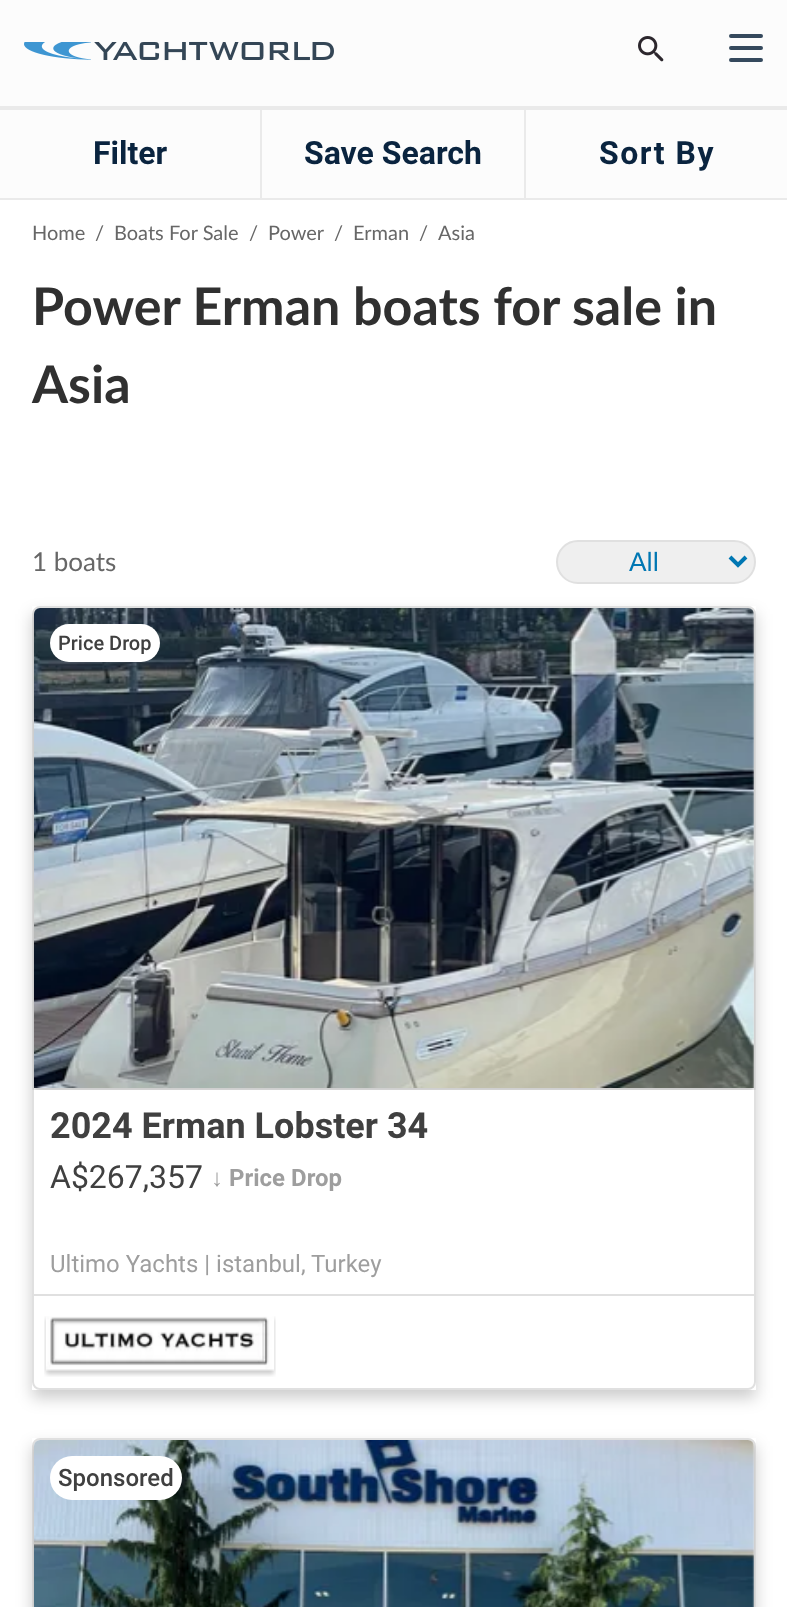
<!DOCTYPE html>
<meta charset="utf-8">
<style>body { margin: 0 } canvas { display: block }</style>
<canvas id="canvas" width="787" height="1607"></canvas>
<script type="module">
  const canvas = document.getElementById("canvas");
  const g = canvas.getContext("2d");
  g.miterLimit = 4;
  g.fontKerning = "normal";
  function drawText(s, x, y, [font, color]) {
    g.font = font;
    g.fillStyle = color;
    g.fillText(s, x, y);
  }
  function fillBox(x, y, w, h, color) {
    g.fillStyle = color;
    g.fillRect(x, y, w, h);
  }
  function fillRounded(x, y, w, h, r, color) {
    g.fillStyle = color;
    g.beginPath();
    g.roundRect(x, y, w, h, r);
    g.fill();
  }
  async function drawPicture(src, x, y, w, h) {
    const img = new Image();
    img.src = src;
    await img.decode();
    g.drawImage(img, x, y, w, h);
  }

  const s1 = ["bold 32px Roboto", "#0A243F"];
  const s2 = ["20px Lato", "#676767"];
  const s3 = ["bold 52px Lato", "#303030"];
  const s4 = ["26px Lato", "#676767"];
  const s5 = ["26px Lato", "#0077B3"];
  const s6 = ["500 20px Roboto", "#404040"];
  const s7 = ["bold 36px Roboto", "#404040"];
  const s8 = ["32px Roboto", "#404040"];
  const s9 = ["bold 24px Liberation Sans", "#9E9E9E"];
  const s10 = ["bold 24px Roboto", "#9E9E9E"];
  const s11 = ["24px Roboto", "#9E9E9E"];
  const s12 = ["500 24px Roboto", "#404040"];

  fillBox(0, 0, 787, 1607, "#FCFCFC");
  fillBox(0, 106, 787, 4, "#EAEAEA");
  await drawPicture("pic1.png", 24, 41, 310, 20);
  g.beginPath();
  g.moveTo(731, 36);
  g.lineTo(761, 36);
  g.moveTo(731, 48);
  g.lineTo(761, 48);
  g.moveTo(731, 60);
  g.lineTo(761, 60);
  g.strokeStyle = "#35495D";
  g.lineWidth = 4;
  g.lineCap = "round";
  g.stroke();
  await drawPicture("pic2.png", 638, 36, 26, 26);
  fillBox(0, 200, 787, 1407, "#FFFFFF");
  fillBox(0, 198, 787, 2, "#EAEAEA");
  fillBox(260, 110, 2, 88, "#EAEAEA");
  drawText("Filter", 93, 164, s1);
  fillBox(524, 110, 2, 88, "#EAEAEA");
  drawText("Save Search", 304, 164, s1);
  g.letterSpacing = "1.5px";
  drawText("Sort By", 599, 164, s1);
  g.letterSpacing = "0px";
  drawText("Home", 32, 240, s2);
  drawText("/", 95, 240, s2);
  drawText("Boats For Sale", 114, 240, s2);
  drawText("/", 249, 240, s2);
  drawText("Power", 268, 240, s2);
  drawText("/", 334, 240, s2);
  drawText("Erman", 353, 240, s2);
  drawText("/", 419, 240, s2);
  drawText("Asia", 438, 240, s2);
  drawText("Power Erman boats for sale in", 32, 325, s3);
  drawText("Asia", 32, 403, s3);
  drawText("1 boats", 32, 571, s4);
  g.fillStyle = "#EFEFEF";
  g.beginPath();
  g.roundRect(557, 541, 198, 42, 21);
  g.fill();
  g.strokeStyle = "#E0E0E0";
  g.lineWidth = 2;
  g.stroke();
  g.beginPath();
  g.moveTo(730, 557);
  g.lineTo(738, 565);
  g.lineTo(746, 557);
  g.strokeStyle = "#0077B3";
  g.lineWidth = 4;
  g.lineCap = "butt";
  g.stroke();
  drawText("All", 629, 571, s5);
  g.save();
  g.beginPath();
  g.moveTo(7, 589);
  g.lineTo(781, 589);
  g.lineTo(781, 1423);
  g.lineTo(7, 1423);
  g.closePath();
  g.moveTo(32, 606);
  g.lineTo(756, 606);
  g.lineTo(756, 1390);
  g.lineTo(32, 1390);
  g.closePath();
  g.clip("evenodd");
  g.fillStyle = "rgba(0, 0, 0, 0.2)";
  g.filter = "blur(8px)";
  g.beginPath();
  g.rect(32, 614, 724, 784);
  g.fill();
  g.filter = "none";
  g.restore();
  g.beginPath();
  g.roundRect(33, 607, 722, 782, 7);
  g.strokeStyle = "#E0E0E0";
  g.lineWidth = 2;
  g.stroke();
  await drawPicture("pic3.png", 32, 608, 724, 482);
  fillRounded(50, 624, 110, 38, 19, "#FFFFFF");
  drawText("Price Drop", 58, 650, s6);
  drawText("2024 Erman Lobster 34", 50, 1138, s7);
  drawText("A$267,357", 50, 1188, s8);
  drawText("↓", 211, 1186, s9);
  drawText("Price Drop", 229, 1186, s10);
  drawText("Ultimo Yachts | istanbul, Turkey", 50, 1272, s11);
  fillBox(34, 1294, 720, 2, "#E0E0E0");
  await drawPicture("pic4.png", 44, 1316, 232, 61);
  g.save();
  g.beginPath();
  g.moveTo(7, 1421);
  g.lineTo(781, 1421);
  g.lineTo(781, 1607);
  g.lineTo(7, 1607);
  g.closePath();
  g.moveTo(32, 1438);
  g.lineTo(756, 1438);
  g.lineTo(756, 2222);
  g.lineTo(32, 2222);
  g.closePath();
  g.clip("evenodd");
  g.fillStyle = "rgba(0, 0, 0, 0.2)";
  g.filter = "blur(8px)";
  g.beginPath();
  g.rect(32, 1446, 724, 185);
  g.fill();
  g.filter = "none";
  g.restore();
  g.beginPath();
  g.roundRect(33, 1439, 722, 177, 7);
  g.stroke();
  await drawPicture("pic5.png", 32, 1440, 724, 167);
  fillRounded(50, 1456, 132, 44, 22, "#FFFFFF");
  drawText("Sponsored", 58, 1486, s12);
</script>
